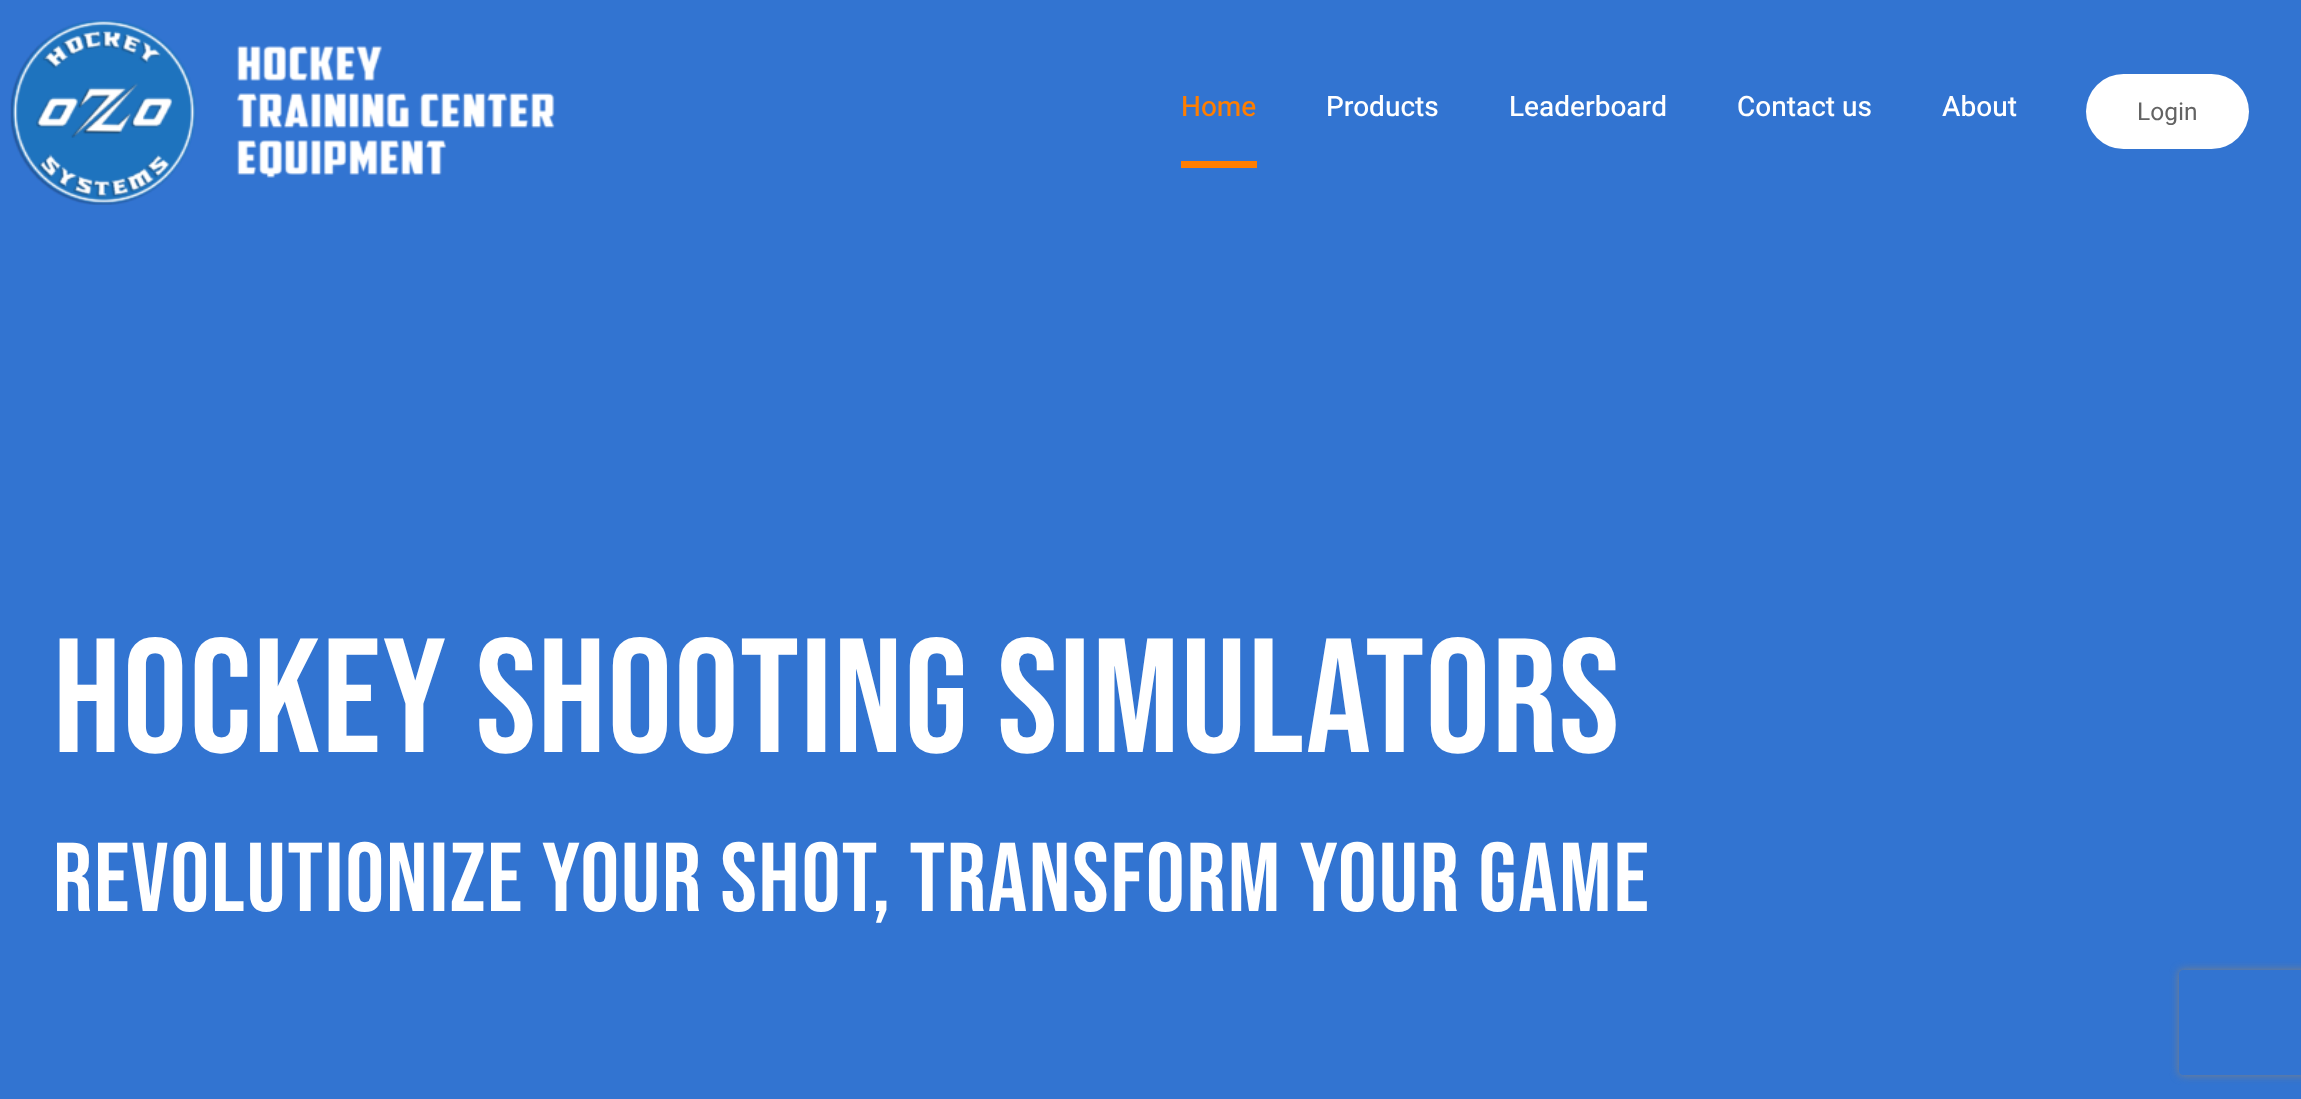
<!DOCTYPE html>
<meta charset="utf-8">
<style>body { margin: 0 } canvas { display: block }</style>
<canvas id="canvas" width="2301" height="1099"></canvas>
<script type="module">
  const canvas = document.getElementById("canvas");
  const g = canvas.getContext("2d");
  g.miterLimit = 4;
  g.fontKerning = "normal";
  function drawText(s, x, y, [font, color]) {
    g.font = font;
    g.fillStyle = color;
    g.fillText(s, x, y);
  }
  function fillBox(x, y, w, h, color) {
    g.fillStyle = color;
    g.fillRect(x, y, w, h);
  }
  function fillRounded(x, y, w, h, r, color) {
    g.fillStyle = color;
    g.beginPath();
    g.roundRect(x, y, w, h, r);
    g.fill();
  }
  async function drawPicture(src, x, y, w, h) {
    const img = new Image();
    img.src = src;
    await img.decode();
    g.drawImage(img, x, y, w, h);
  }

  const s1 = ["500 28px Heebo", "#FF7E00"];
  const s2 = ["500 28px Heebo", "#FFFFFF"];
  const s3 = ["24.5px Heebo", "#636363"];
  const s4 = ["162px Bebas Neue", "#FFFFFF"];
  const s5 = ["97.7px Bebas Neue", "#FFFFFF"];

  fillBox(0, 0, 2301, 1099, "#3274D1");
  await drawPicture("pic1.png", 10, 20, 545, 185);
  drawText("Home", 1181, 116, s1);
  fillBox(1181, 161, 76, 7, "#FF7E00");
  drawText("Products", 1326, 116, s2);
  drawText("Leaderboard", 1509, 116, s2);
  drawText("Contact us", 1737, 116, s2);
  drawText("About", 1942, 116, s2);
  fillRounded(2086, 74, 163, 75, 37.5, "#FFFFFF");
  drawText("Login", 2137, 120, s3);
  g.letterSpacing = "1.75px";
  drawText("Hockey Shooting Simulators", 53, 752, s4);
  drawText("Revolutionize Your Shot, Transform Your Game", 53, 911, s5);
  g.save();
  g.beginPath();
  g.moveTo(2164, 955);
  g.lineTo(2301, 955);
  g.lineTo(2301, 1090);
  g.lineTo(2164, 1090);
  g.closePath();
  g.moveTo(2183, 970);
  g.lineTo(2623, 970);
  g.bezierCurveTo(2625, 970, 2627, 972, 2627, 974);
  g.lineTo(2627, 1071);
  g.bezierCurveTo(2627, 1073, 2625, 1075, 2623, 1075);
  g.lineTo(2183, 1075);
  g.bezierCurveTo(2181, 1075, 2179, 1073, 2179, 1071);
  g.lineTo(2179, 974);
  g.bezierCurveTo(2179, 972, 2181, 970, 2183, 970);
  g.closePath();
  g.clip("evenodd");
  g.fillStyle = "#808080";
  g.filter = "blur(4.5px)";
  g.beginPath();
  g.roundRect(2179, 970, 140, 105, 4);
  g.fill();
  g.filter = "none";
  g.restore();
</script>
